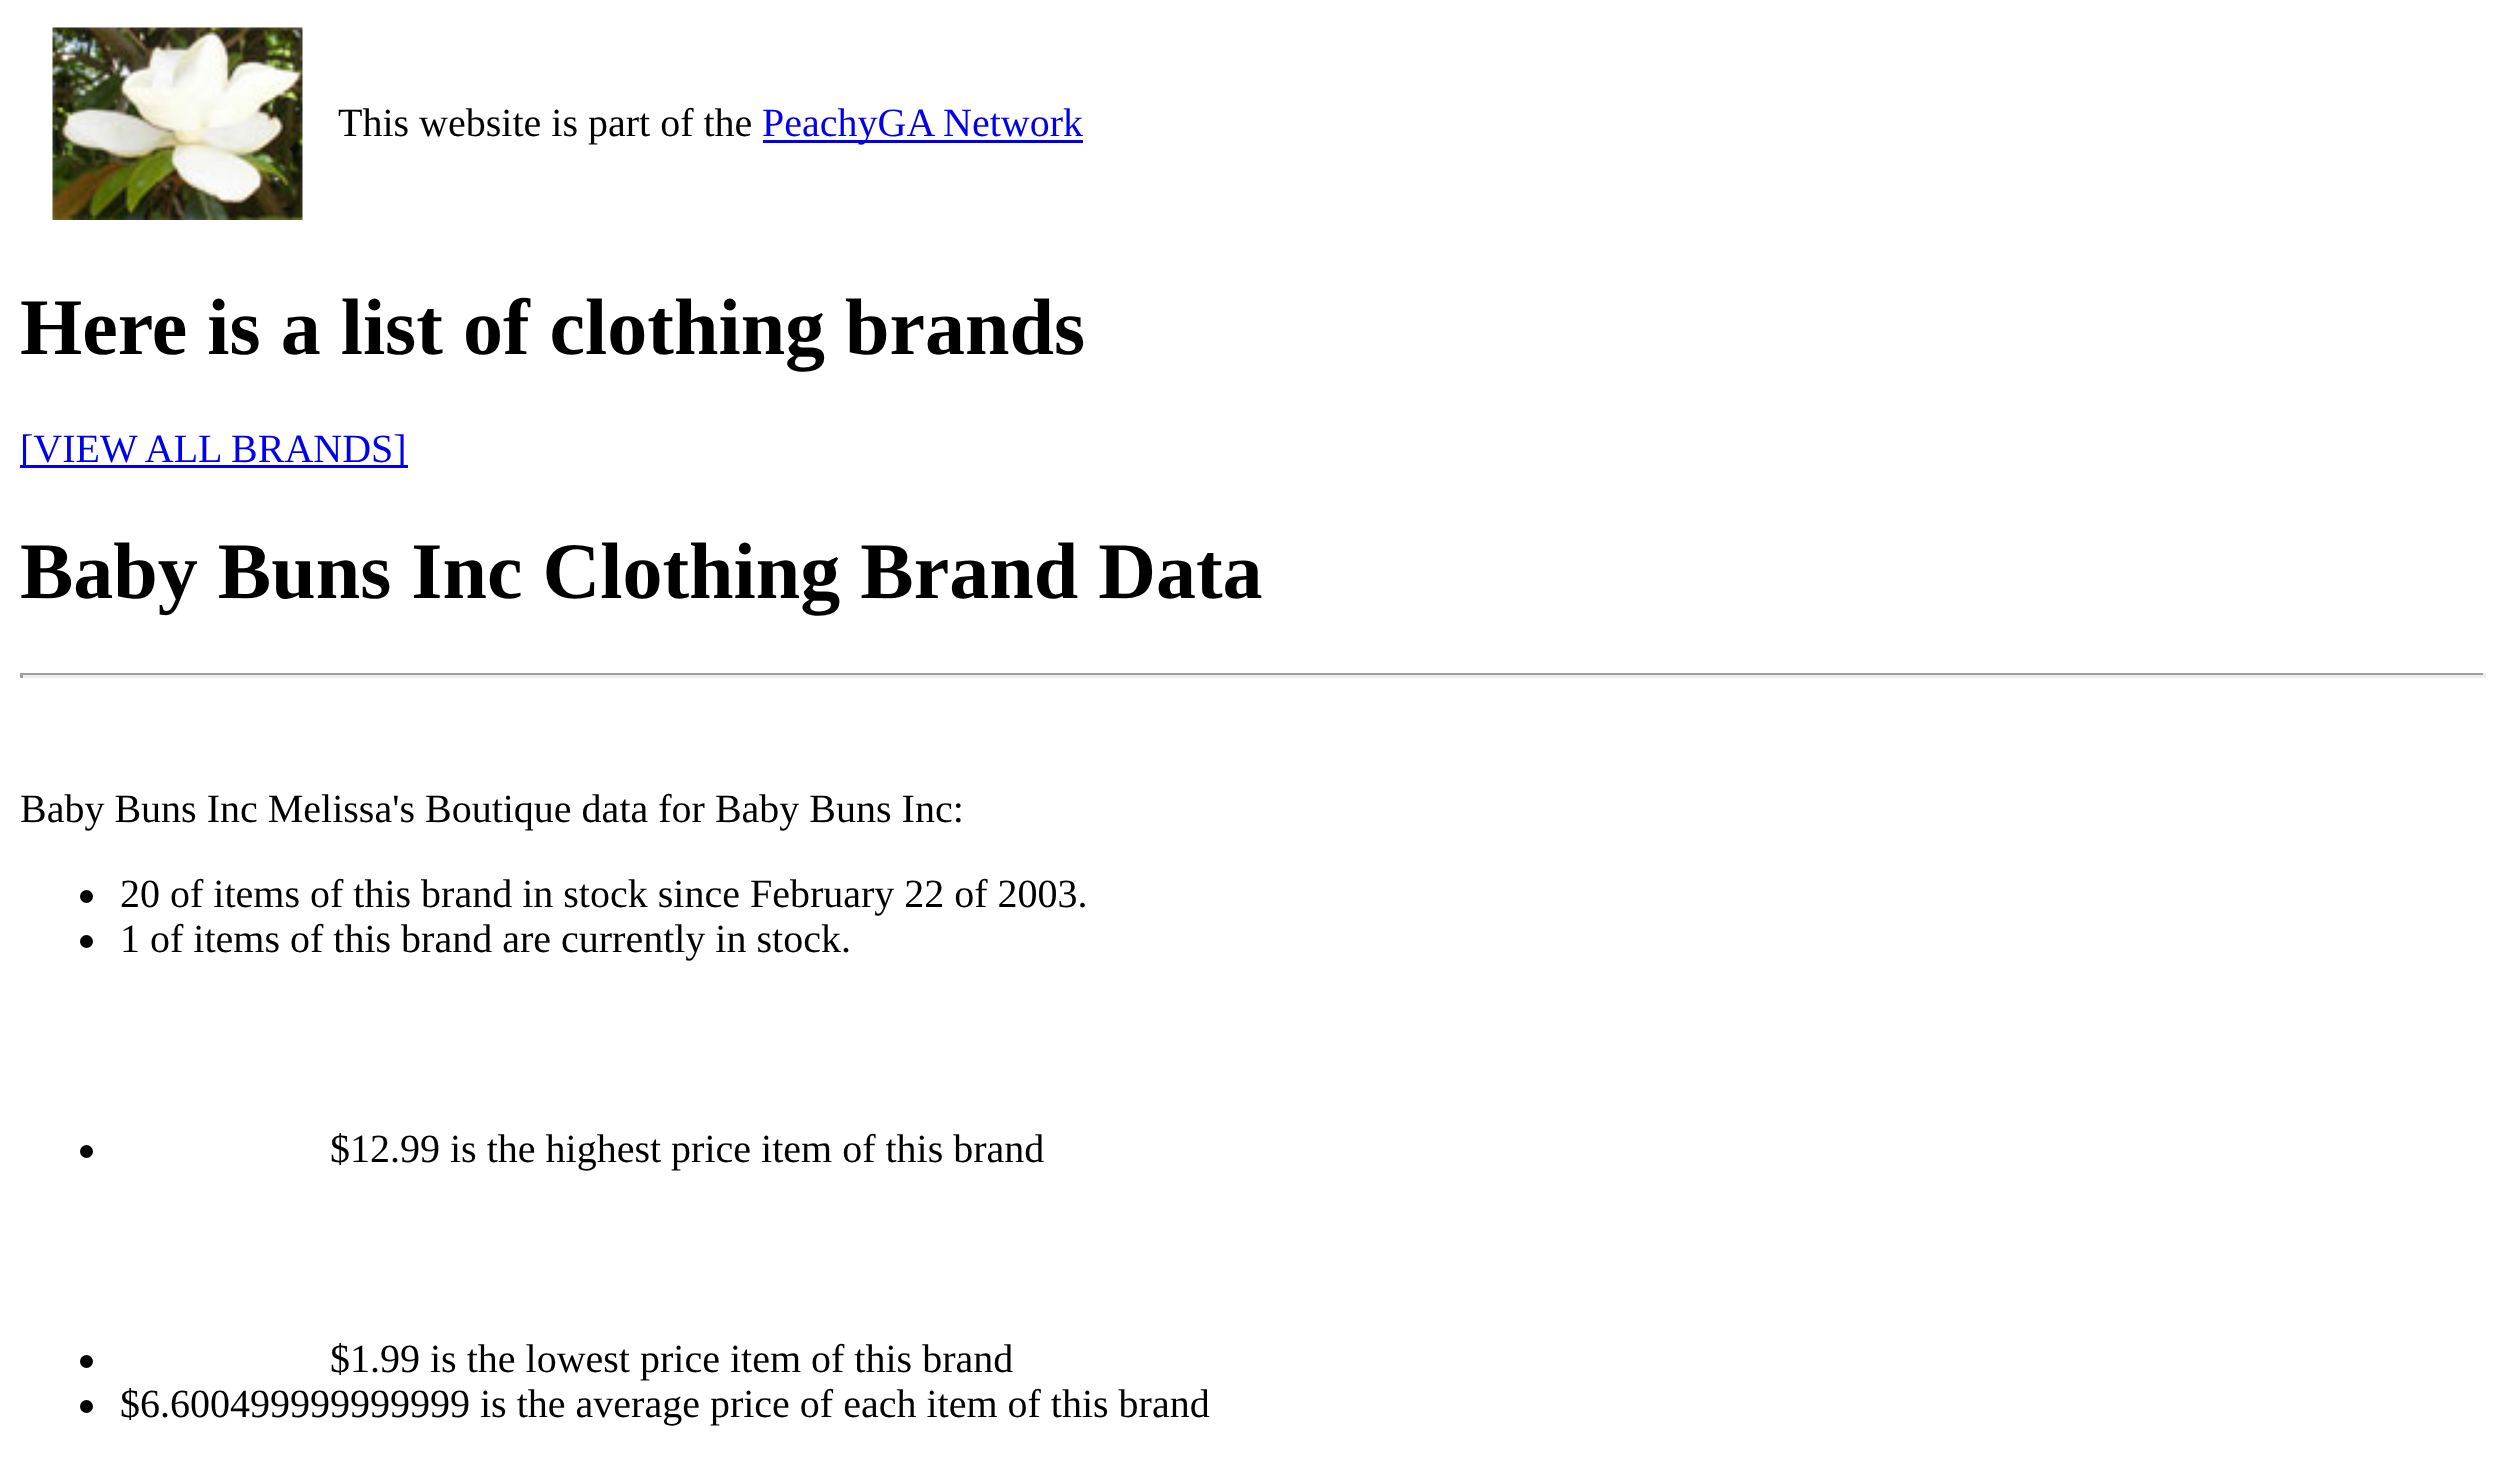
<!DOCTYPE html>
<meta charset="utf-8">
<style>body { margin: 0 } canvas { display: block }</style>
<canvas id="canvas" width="2504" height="1467"></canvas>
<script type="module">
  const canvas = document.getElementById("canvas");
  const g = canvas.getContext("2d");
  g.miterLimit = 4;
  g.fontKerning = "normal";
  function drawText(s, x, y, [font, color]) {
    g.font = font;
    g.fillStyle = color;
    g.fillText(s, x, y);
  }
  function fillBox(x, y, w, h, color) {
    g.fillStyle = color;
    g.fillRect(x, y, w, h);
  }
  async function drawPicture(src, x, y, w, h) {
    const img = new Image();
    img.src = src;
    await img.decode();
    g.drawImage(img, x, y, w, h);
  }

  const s1 = ["40px Liberation Serif", "#000000"];
  const s2 = ["40px Liberation Serif", "#0000EE"];
  const s3 = ["bold 80px Liberation Serif", "#000000"];

  fillBox(0, 0, 2504, 1467, "#FFFFFF");
  await drawPicture("pic1.png", 52, 27, 251, 193);
  drawText("This website is part of the", 338, 136, s1);
  fillBox(763, 140, 320, 3, "#0000EE");
  drawText("PeachyGA Network", 762, 136, s2);
  drawText("Here is a list of clothing brands", 20, 354, s3);
  fillBox(20, 465, 388, 3, "#0000EE");
  drawText("[VIEW ALL BRANDS]", 20, 462, s2);
  drawText("Baby Buns Inc Clothing Brand Data", 20, 598, s3);
  fillBox(20, 673, 2465, 2, "#9F9F9F");
  fillBox(2483, 673, 3, 5, "#EEEEEE");
  fillBox(20, 675, 2465, 3, "#EEEEEE");
  fillBox(20, 673, 3, 5, "#9F9F9F");
  drawText("Baby Buns Inc Melissa's Boutique data for Baby Buns Inc:", 20, 822, s1);
  g.beginPath();
  g.arc(86.5, 896.5, 6.5, 0, Math.PI * 2);
  g.fill();
  drawText("20 of items of this brand in stock since February 22 of 2003.", 120, 907, s1);
  g.beginPath();
  g.arc(86.5, 941.5, 6.5, 0, Math.PI * 2);
  g.fill();
  drawText("1 of items of this brand are currently in stock.", 120, 952, s1);
  g.beginPath();
  g.arc(86.5, 1151.5, 6.5, 0, Math.PI * 2);
  g.fill();
  drawText("$12.99 is the highest price item of this brand", 330, 1162, s1);
  g.beginPath();
  g.arc(86.5, 1361.5, 6.5, 0, Math.PI * 2);
  g.fill();
  drawText("$1.99 is the lowest price item of this brand", 330, 1372, s1);
  g.beginPath();
  g.arc(86.5, 1406.5, 6.5, 0, Math.PI * 2);
  g.fill();
  drawText("$6.600499999999999 is the average price of each item of this brand", 120, 1417, s1);
</script>
